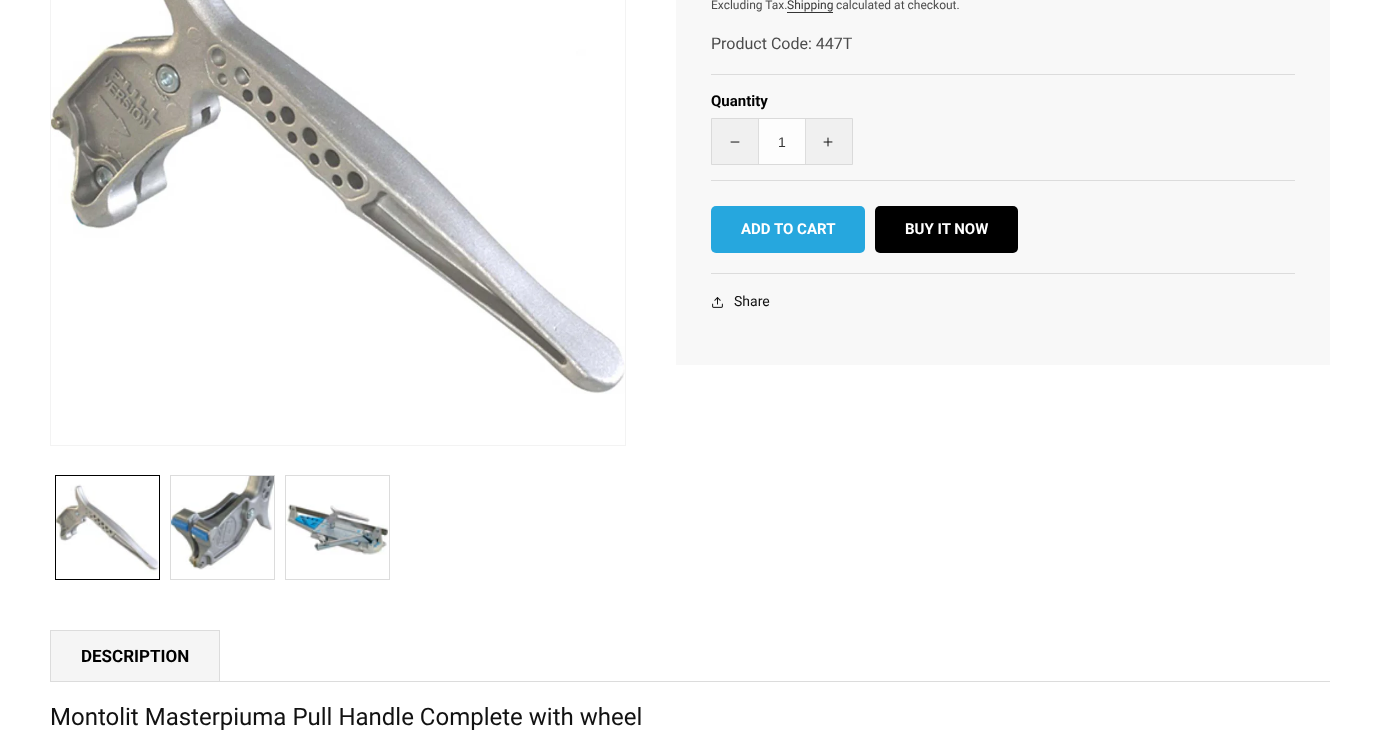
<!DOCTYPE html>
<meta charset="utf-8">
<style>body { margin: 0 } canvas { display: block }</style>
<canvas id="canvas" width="1379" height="743"></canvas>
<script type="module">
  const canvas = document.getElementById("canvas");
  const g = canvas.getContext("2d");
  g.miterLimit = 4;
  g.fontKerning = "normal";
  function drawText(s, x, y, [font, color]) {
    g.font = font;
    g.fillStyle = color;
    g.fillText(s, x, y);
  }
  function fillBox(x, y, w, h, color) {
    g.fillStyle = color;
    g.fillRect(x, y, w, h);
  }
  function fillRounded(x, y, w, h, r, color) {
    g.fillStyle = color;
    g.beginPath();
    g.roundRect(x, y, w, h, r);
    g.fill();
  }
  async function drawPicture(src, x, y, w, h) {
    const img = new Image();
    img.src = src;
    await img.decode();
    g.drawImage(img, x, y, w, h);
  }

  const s1 = ["12px Roboto", "#4C4C4C"];
  const s2 = ["12px Roboto", "#353535"];
  const s3 = ["16px Roboto", "#4C4C4C"];
  const s4 = ["bold 15px Roboto", "#000000"];
  const s5 = ["14px Liberation Sans", "#353535"];
  const s6 = ["bold 15px Roboto", "#FFFFFF"];
  const s7 = ["14px Roboto", "#121212"];
  const s8 = ["bold 17px Roboto", "#000000"];
  const s9 = ["24px Roboto", "#121212"];

  fillBox(0, 0, 1379, 743, "#FFFFFF");
  g.strokeStyle = "#F3F3F3";
  g.strokeRect(50.5, -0.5, 575, 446);
  await drawPicture("pic1.png", 51, 0, 574, 394);
  g.strokeStyle = "#000000";
  g.strokeRect(55.5, 475.5, 104, 104);
  await drawPicture("pic2.png", 56, 484, 103, 90);
  g.strokeStyle = "#DCDCDC";
  g.strokeRect(170.5, 475.5, 104, 104);
  await drawPicture("pic3.png", 171, 476, 103, 94);
  g.strokeRect(285.5, 475.5, 104, 104);
  await drawPicture("pic4.png", 286, 504, 103, 51);
  fillBox(676, 0, 654, 365, "#F8F8F8");
  drawText("Excluding Tax.", 711, 9, s1);
  drawText("Shipping", 787, 9, s2);
  fillBox(787, 12, 46, 1, "#353535");
  drawText("calculated at checkout.", 836, 9, s1);
  drawText("Product Code: 447T", 711, 49, s3);
  fillBox(711, 74, 584, 1, "#DCDCDC");
  fillBox(711, 180, 584, 1, "#DCDCDC");
  drawText("Quantity", 711, 106, s4);
  g.fillStyle = "#F0F0F0";
  g.beginPath();
  g.rect(711.5, 118.5, 141, 46);
  g.fill();
  g.strokeStyle = "#DADADA";
  g.stroke();
  await drawPicture("pic5.png", 730, 141, 10, 2);
  fillBox(759, 119, 46, 45, "#FDFDFD");
  fillBox(805, 119, 1, 45, "#DDDDDD");
  fillBox(758, 119, 1, 45, "#DDDDDD");
  drawText("1", 778, 147, s5);
  await drawPicture("pic6.png", 823, 137, 10, 10);
  fillBox(711, 273, 584, 1, "#DCDCDC");
  fillRounded(711, 206, 154, 47, 5, "#26A7DE");
  drawText("ADD TO CART", 741, 234, s6);
  fillRounded(875, 206, 143, 47, 5, "#000000");
  drawText("BUY IT NOW", 905, 234, s6);
  await drawPicture("pic7.png", 712, 297, 11, 11);
  drawText("Share", 734, 306, s7);
  fillBox(50, 681, 1280, 1, "#DCDCDC");
  fillBox(51, 631, 168, 50, "#F5F5F5");
  fillBox(50, 630, 170, 1, "#DCDCDC");
  fillBox(219, 630, 1, 51, "#DCDCDC");
  fillBox(50, 630, 1, 51, "#DCDCDC");
  drawText("DESCRIPTION", 81, 662, s8);
  drawText("Montolit Masterpiuma Pull Handle Complete with wheel", 50, 725, s9);
</script>
